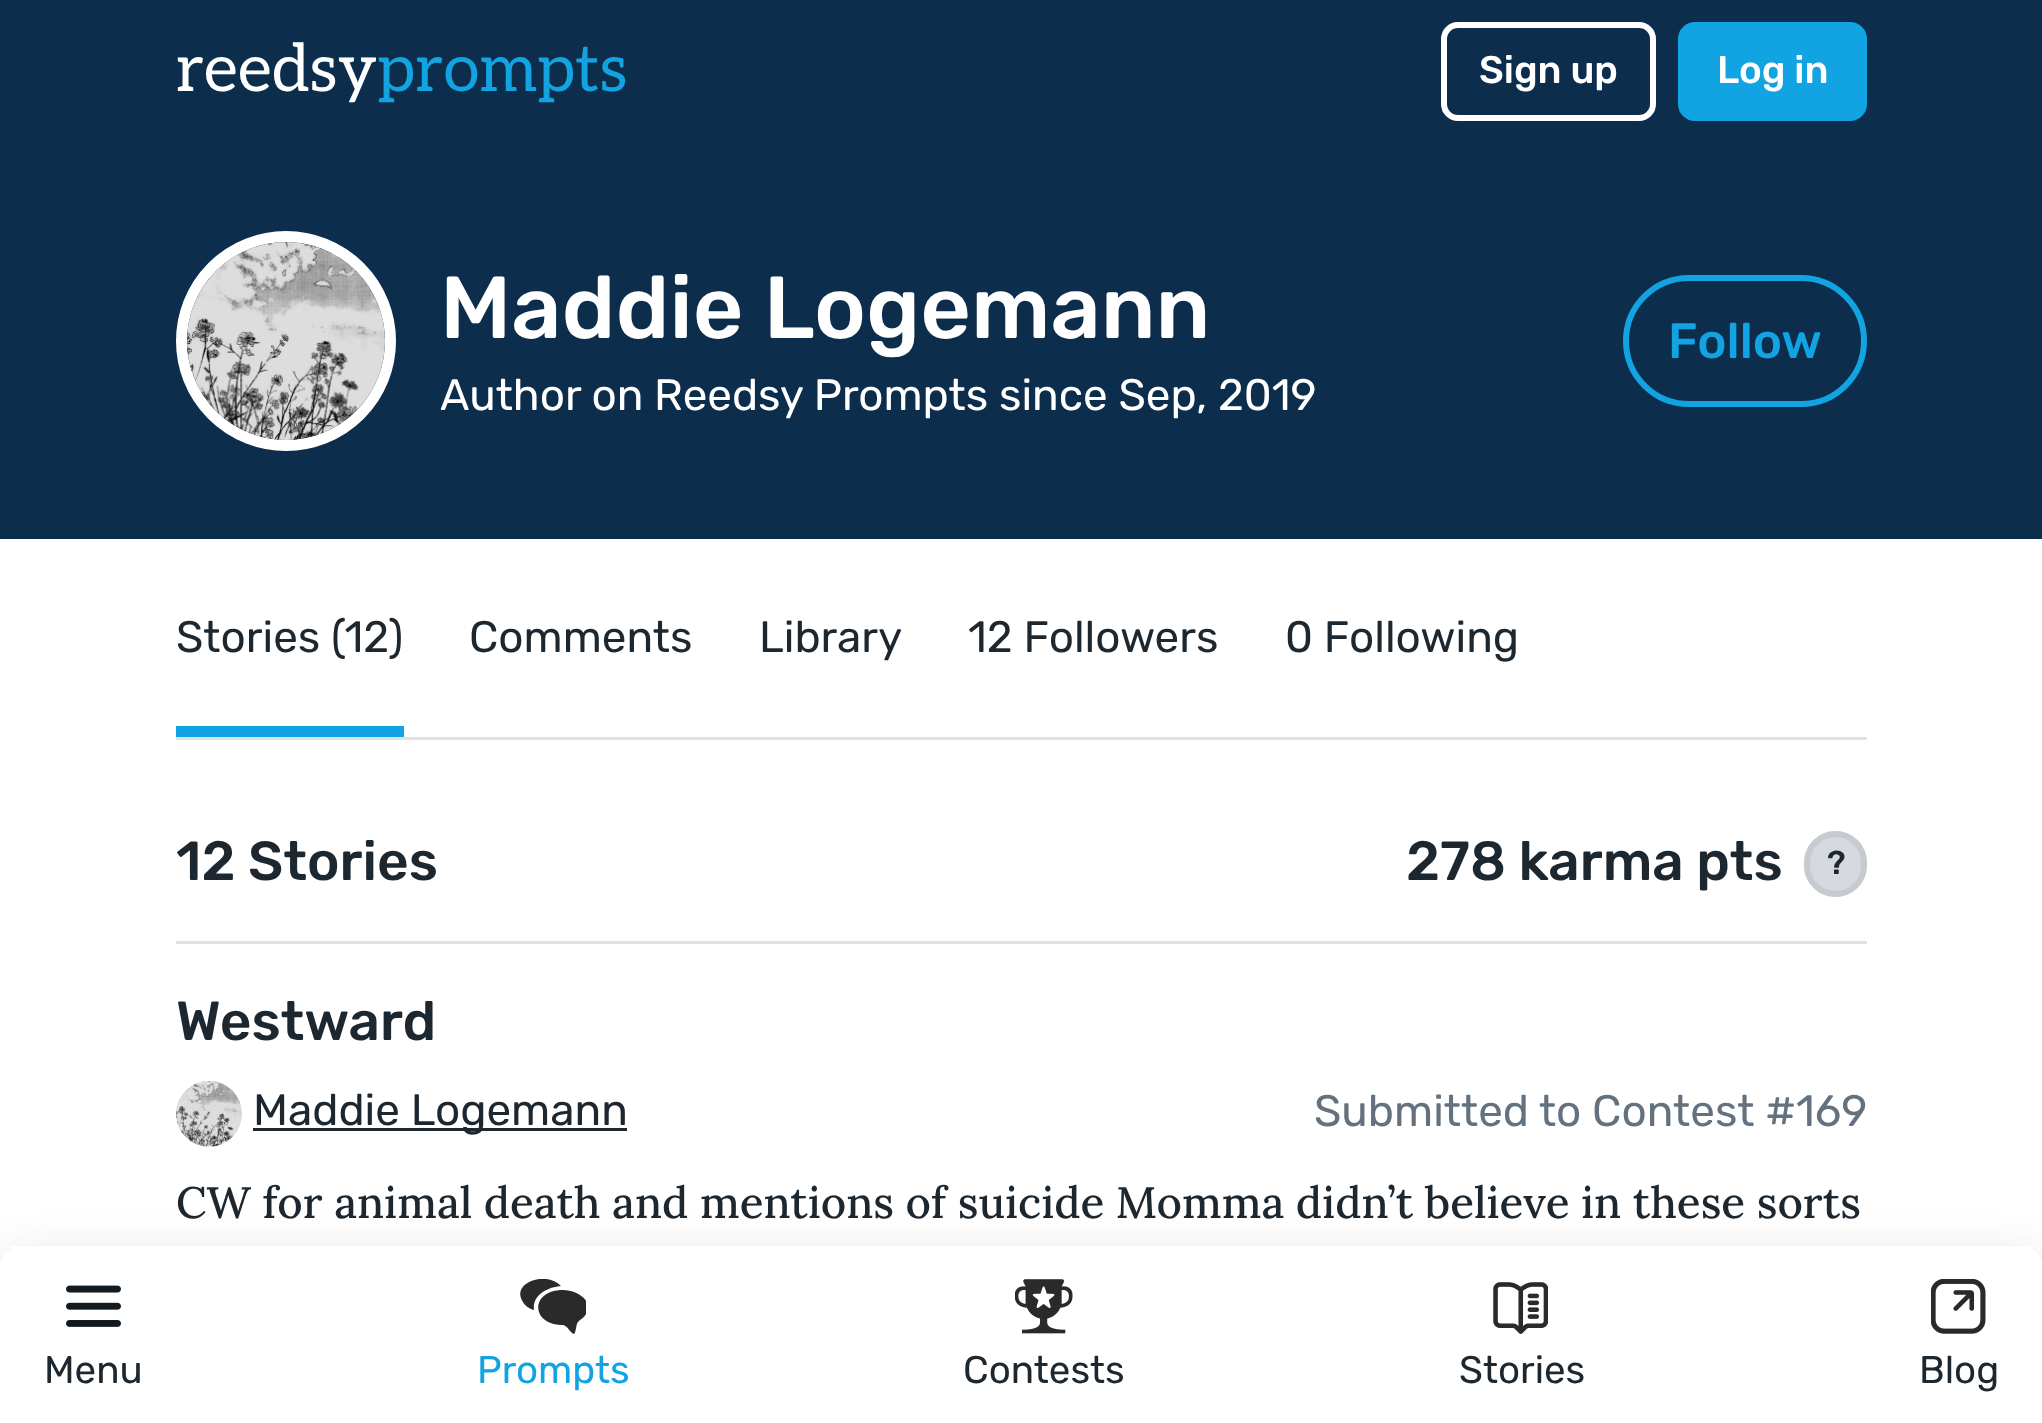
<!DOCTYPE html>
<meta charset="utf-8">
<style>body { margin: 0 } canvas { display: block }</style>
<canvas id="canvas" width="2042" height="1423"></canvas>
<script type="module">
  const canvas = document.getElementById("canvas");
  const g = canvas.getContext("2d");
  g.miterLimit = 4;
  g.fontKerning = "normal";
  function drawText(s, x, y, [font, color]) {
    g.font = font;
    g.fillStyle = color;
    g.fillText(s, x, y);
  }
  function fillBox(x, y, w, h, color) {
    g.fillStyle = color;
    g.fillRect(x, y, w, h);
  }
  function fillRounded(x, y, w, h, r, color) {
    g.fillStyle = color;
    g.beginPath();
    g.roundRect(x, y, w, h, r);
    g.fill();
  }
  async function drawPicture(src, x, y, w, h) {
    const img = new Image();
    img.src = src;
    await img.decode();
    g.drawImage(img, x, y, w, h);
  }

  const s1 = ["66px Aleo", "#FFFFFF"];
  const s2 = ["66px Aleo", "#12A4E2"];
  const s3 = ["500 38.5px Rubik", "#FFFFFF"];
  const s4 = ["500 88px Rubik", "#FFFFFF"];
  const s5 = ["44px Rubik", "#FFFFFF"];
  const s6 = ["500 49.5px Rubik", "#12A4E2"];
  const s7 = ["38.5px Rubik", "#1D2730"];
  const s8 = ["38.5px Rubik", "#12A4E2"];
  const s9 = ["44px Rubik", "#1D2730"];
  const s10 = ["500 55px Rubik", "#1D2730"];
  const s11 = ["500 33px Rubik", "#1D2730"];
  const s12 = ["44px Rubik", "#64727F"];
  const s13 = ["500 44px Lora", "#1D2730"];

  fillBox(0, 0, 2042, 1423, "#FFFFFF");
  fillBox(0, 0, 2042, 539, "#0D2D4D");
  drawText("reedsy", 176, 91, s1);
  drawText("prompts", 377, 91, s2);
  g.beginPath();
  g.roundRect(1444, 25, 209, 93, 14);
  g.strokeStyle = "#FFFFFF";
  g.lineWidth = 6;
  g.stroke();
  drawText("Sign up", 1479, 83, s3);
  g.fillStyle = "#12A4E2";
  g.beginPath();
  g.roundRect(1681, 25, 183, 93, 14);
  g.fill();
  g.strokeStyle = "#12A4E2";
  g.stroke();
  drawText("Log in", 1717, 83, s3);
  g.beginPath();
  g.arc(286, 341, 104.5, 0, Math.PI * 2);
  g.strokeStyle = "#FFFFFF";
  g.lineWidth = 11;
  g.stroke();
  await drawPicture("pic1.png", 187, 242, 198, 198);
  drawText("Maddie Logemann", 440, 338, s4);
  drawText("Author on Reedsy Prompts since Sep, 2019", 440, 410, s5);
  g.beginPath();
  g.roundRect(1626, 278, 238, 126, 63);
  g.strokeStyle = "#12A4E2";
  g.lineWidth = 6;
  g.stroke();
  drawText("Follow", 1668, 358, s6);
  g.save();
  g.beginPath();
  g.moveTo(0, 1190);
  g.lineTo(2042, 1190);
  g.lineTo(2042, 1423);
  g.lineTo(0, 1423);
  g.closePath();
  g.moveTo(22, 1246);
  g.lineTo(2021, 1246);
  g.bezierCurveTo(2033, 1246, 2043, 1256, 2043, 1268);
  g.lineTo(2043, 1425);
  g.lineTo(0, 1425);
  g.lineTo(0, 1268);
  g.bezierCurveTo(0, 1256, 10, 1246, 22, 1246);
  g.closePath();
  g.clip("evenodd");
  g.fillStyle = "rgba(17, 17, 26, 0.15)";
  g.filter = "blur(22px)";
  g.beginPath();
  g.roundRect(0, 1257, 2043, 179, 22);
  g.fill();
  g.filter = "none";
  g.restore();
  fillBox(11, 1246, 2021, 3, "#FFFFFF");
  await drawPicture("pic2.png", 66, 1285, 55, 42);
  drawText("Menu", 44, 1383, s7);
  g.save();
  g.beginPath();
  g.rect(520, 1279, 66, 55);
  g.clip();
  g.fillStyle = "#2A2A2A";
  g.beginPath();
  g.moveTo(534, 1310);
  g.bezierCurveTo(530, 1309, 525, 1306, 523, 1302);
  g.bezierCurveTo(510, 1283, 546, 1270, 561, 1286);
  g.bezierCurveTo(548, 1287, 532, 1295, 534, 1310);
  g.closePath();
  g.moveTo(563, 1325);
  g.bezierCurveTo(530, 1325, 530, 1290, 563, 1290);
  g.bezierCurveTo(575, 1290, 594, 1299, 586, 1314);
  g.bezierCurveTo(585, 1316, 583, 1318, 580, 1320);
  g.lineTo(578, 1322);
  g.bezierCurveTo(576, 1324, 576, 1333, 574, 1334);
  g.bezierCurveTo(571, 1334, 567, 1325, 563, 1325);
  g.closePath();
  g.fill("evenodd");
  g.restore();
  drawText("Prompts", 477, 1383, s8);
  await drawPicture("pic3.png", 1015, 1279, 58, 55);
  drawText("Contests", 963, 1383, s7);
  await drawPicture("pic4.png", 1493, 1282, 55, 52);
  drawText("Stories", 1459, 1383, s7);
  await drawPicture("pic5.png", 1931, 1279, 55, 55);
  drawText("Blog", 1919, 1383, s7);
  fillBox(176, 737, 1691, 3, "#E0E2E4");
  fillBox(176, 726, 228, 11, "#12A4E2");
  drawText("Stories (12)", 176, 652, s9);
  drawText("Comments", 469, 652, s9);
  drawText("Library", 759, 652, s9);
  drawText("12 Followers", 968, 652, s9);
  drawText("0 Following", 1285, 652, s9);
  drawText("12 Stories", 176, 880, s10);
  drawText("278 karma pts", 1406, 880, s10);
  fillRounded(1804, 831, 63, 66, 31.5, "#D6D9DE");
  g.beginPath();
  g.roundRect(1807, 834, 57, 60, 28.5);
  g.strokeStyle = "rgba(187, 192, 200, 0.6)";
  g.stroke();
  drawText("?", 1827, 874, s11);
  fillBox(176, 941, 1691, 3, "#E0E2E4");
  drawText("Westward", 176, 1040, s10);
  await drawPicture("pic6.png", 176, 1081, 66, 66);
  fillBox(253, 1128, 374, 3, "#1D2730");
  drawText("Maddie Logemann", 253, 1125, s9);
  drawText("Submitted to Contest #169", 1314, 1126, s12);
  drawText("CW for animal death and mentions of suicide Momma didn’t believe in these sorts", 176, 1218, s13);
</script>
